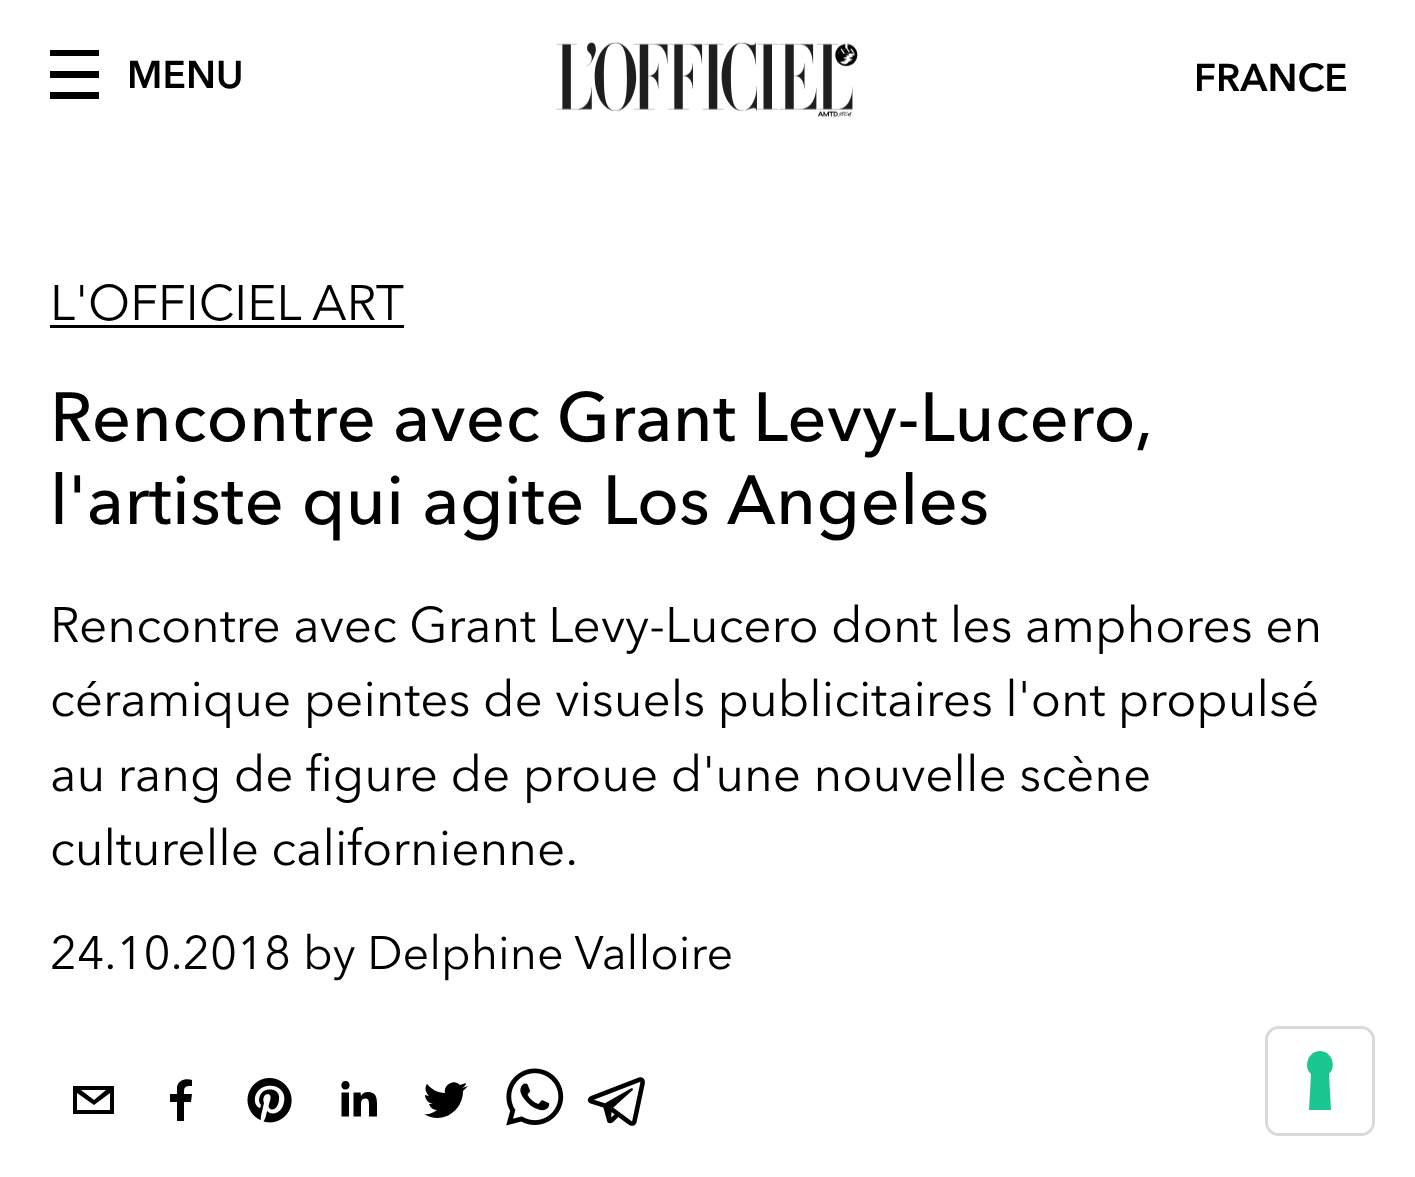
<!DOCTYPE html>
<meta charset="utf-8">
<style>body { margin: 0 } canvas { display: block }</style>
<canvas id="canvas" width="1415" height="1177"></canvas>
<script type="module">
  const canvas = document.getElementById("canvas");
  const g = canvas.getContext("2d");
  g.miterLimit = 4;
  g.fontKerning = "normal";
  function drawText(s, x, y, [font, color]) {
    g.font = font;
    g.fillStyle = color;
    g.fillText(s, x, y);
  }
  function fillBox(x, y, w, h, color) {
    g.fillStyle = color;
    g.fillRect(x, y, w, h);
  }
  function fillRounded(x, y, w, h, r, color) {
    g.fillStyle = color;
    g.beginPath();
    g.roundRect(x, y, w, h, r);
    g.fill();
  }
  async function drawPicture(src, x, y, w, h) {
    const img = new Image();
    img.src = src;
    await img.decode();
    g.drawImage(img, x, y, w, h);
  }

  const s1 = ["bold 38.5px Avenir Next", "#000000"];
  const s2 = ["49.5px Avenir Next", "#000000"];
  const s3 = ["500 68.75px Avenir Next", "#000000"];
  const s4 = ["46.75px Avenir Next", "#000000"];

  fillBox(0, 0, 1415, 1177, "#FFFFFF");
  g.fillStyle = "#000000";
  g.beginPath();
  g.moveTo(96, 56);
  g.lineTo(99, 56);
  g.lineTo(99, 50);
  g.lineTo(50, 50);
  g.lineTo(50, 56);
  g.closePath();
  g.moveTo(96, 78);
  g.lineTo(99, 78);
  g.lineTo(99, 71);
  g.lineTo(50, 71);
  g.lineTo(50, 78);
  g.closePath();
  g.moveTo(96, 99);
  g.lineTo(99, 99);
  g.lineTo(99, 92);
  g.lineTo(50, 92);
  g.lineTo(50, 99);
  g.closePath();
  g.fill();
  drawText("MENU", 127, 88, s1);
  await drawPicture("pic1.png", 556, 42, 302, 75);
  drawText("FRANCE", 1194, 91, s1);
  drawText("L'OFFICIEL ART", 50, 320, s2);
  fillBox(50, 325, 354, 3, "#000000");
  g.letterSpacing = "0.45px";
  g.wordSpacing = "-1px";
  drawText("Rencontre avec Grant Levy-Lucero,", 50, 441, s3);
  g.wordSpacing = "0px";
  drawText("l'artiste qui agite Los Angeles", 50, 524, s3);
  g.letterSpacing = "0px";
  drawText("Rencontre avec Grant Levy-Lucero dont les amphores en", 50, 642, s2);
  drawText("céramique peintes de visuels publicitaires l'ont propulsé", 50, 716, s2);
  drawText("au rang de figure de proue d'une nouvelle scène", 50, 791, s2);
  drawText("culturelle californienne.", 50, 865, s2);
  drawText("24.10.2018 by Delphine Valloire", 50, 969, s4);
  g.beginPath();
  g.moveTo(73, 1086);
  g.lineTo(73, 1114);
  g.lineTo(114, 1114);
  g.lineTo(114, 1086);
  g.closePath();
  g.moveTo(106, 1090);
  g.lineTo(94, 1100);
  g.lineTo(81, 1090);
  g.closePath();
  g.moveTo(77, 1110);
  g.lineTo(77, 1093);
  g.lineTo(94, 1105);
  g.lineTo(110, 1093);
  g.lineTo(110, 1110);
  g.closePath();
  g.fill();
  g.beginPath();
  g.moveTo(184, 1121);
  g.lineTo(184, 1102);
  g.lineTo(191, 1102);
  g.lineTo(192, 1094);
  g.lineTo(184, 1094);
  g.bezierCurveTo(184, 1087, 184, 1086, 192, 1086);
  g.lineTo(192, 1080);
  g.bezierCurveTo(186, 1078, 178, 1080, 177, 1087);
  g.lineTo(177, 1094);
  g.lineTo(170, 1094);
  g.lineTo(170, 1102);
  g.lineTo(177, 1102);
  g.lineTo(177, 1121);
  g.closePath();
  g.fill();
  await drawPicture("pic2.png", 247, 1078, 45, 45);
  g.beginPath();
  g.moveTo(341.5, 1116.5);
  g.lineTo(349, 1116.5);
  g.lineTo(349, 1092.5);
  g.lineTo(341.5, 1092.5);
  g.closePath();
  g.moveTo(345.5, 1081);
  g.bezierCurveTo(340, 1081, 340, 1089.5, 345.5, 1089.5);
  g.bezierCurveTo(351, 1089.5, 351, 1081, 345.5, 1081);
  g.closePath();
  g.moveTo(368, 1092);
  g.bezierCurveTo(364, 1092, 362, 1094, 361, 1096);
  g.lineTo(360.5, 1092.5);
  g.lineTo(353.5, 1092.5);
  g.lineTo(353.5, 1116.5);
  g.lineTo(361, 1116.5);
  g.lineTo(361, 1104.5);
  g.bezierCurveTo(361, 1101.5, 361.5, 1098.5, 365.5, 1098.5);
  g.bezierCurveTo(369, 1098.5, 369, 1102, 369, 1105);
  g.lineTo(369, 1116.5);
  g.lineTo(377, 1116.5);
  g.lineTo(377, 1103.5);
  g.bezierCurveTo(377, 1097, 375.5, 1092, 368, 1092);
  g.closePath();
  g.fill();
  g.beginPath();
  g.moveTo(468, 1086);
  g.lineTo(462, 1088);
  g.bezierCurveTo(464, 1087, 466, 1085, 466, 1083);
  g.lineTo(460, 1085);
  g.bezierCurveTo(454, 1078, 443, 1085, 445, 1093);
  g.bezierCurveTo(438, 1093, 431, 1089, 427, 1084);
  g.bezierCurveTo(424, 1088, 426, 1093, 429, 1096);
  g.lineTo(425, 1095);
  g.bezierCurveTo(425, 1099, 428, 1103, 433, 1104);
  g.lineTo(429, 1104);
  g.bezierCurveTo(430, 1107, 433, 1110, 437, 1110);
  g.bezierCurveTo(433, 1113, 428, 1115, 424, 1114);
  g.bezierCurveTo(441, 1125, 463, 1112, 463, 1091);
  g.closePath();
  g.fill();
  await drawPicture("pic3.png", 506, 1068, 58, 58);
  await drawPicture("pic4.png", 587, 1077, 58, 49);
  g.beginPath();
  g.roundRect(1266.5, 1027.5, 107, 107, 12.5);
  g.strokeStyle = "#D9D9D9";
  g.lineWidth = 3;
  g.stroke();
  fillRounded(1268, 1029, 104, 104, 11, "#FFFFFF");
  g.fillStyle = "#1CC691";
  g.beginPath();
  g.moveTo(1320, 1051);
  g.bezierCurveTo(1332, 1051, 1337, 1067, 1329, 1074);
  g.lineTo(1331, 1110);
  g.lineTo(1309, 1110);
  g.lineTo(1311, 1074);
  g.bezierCurveTo(1303, 1067, 1308, 1051, 1320, 1051);
  g.closePath();
  g.fill("evenodd");
</script>
